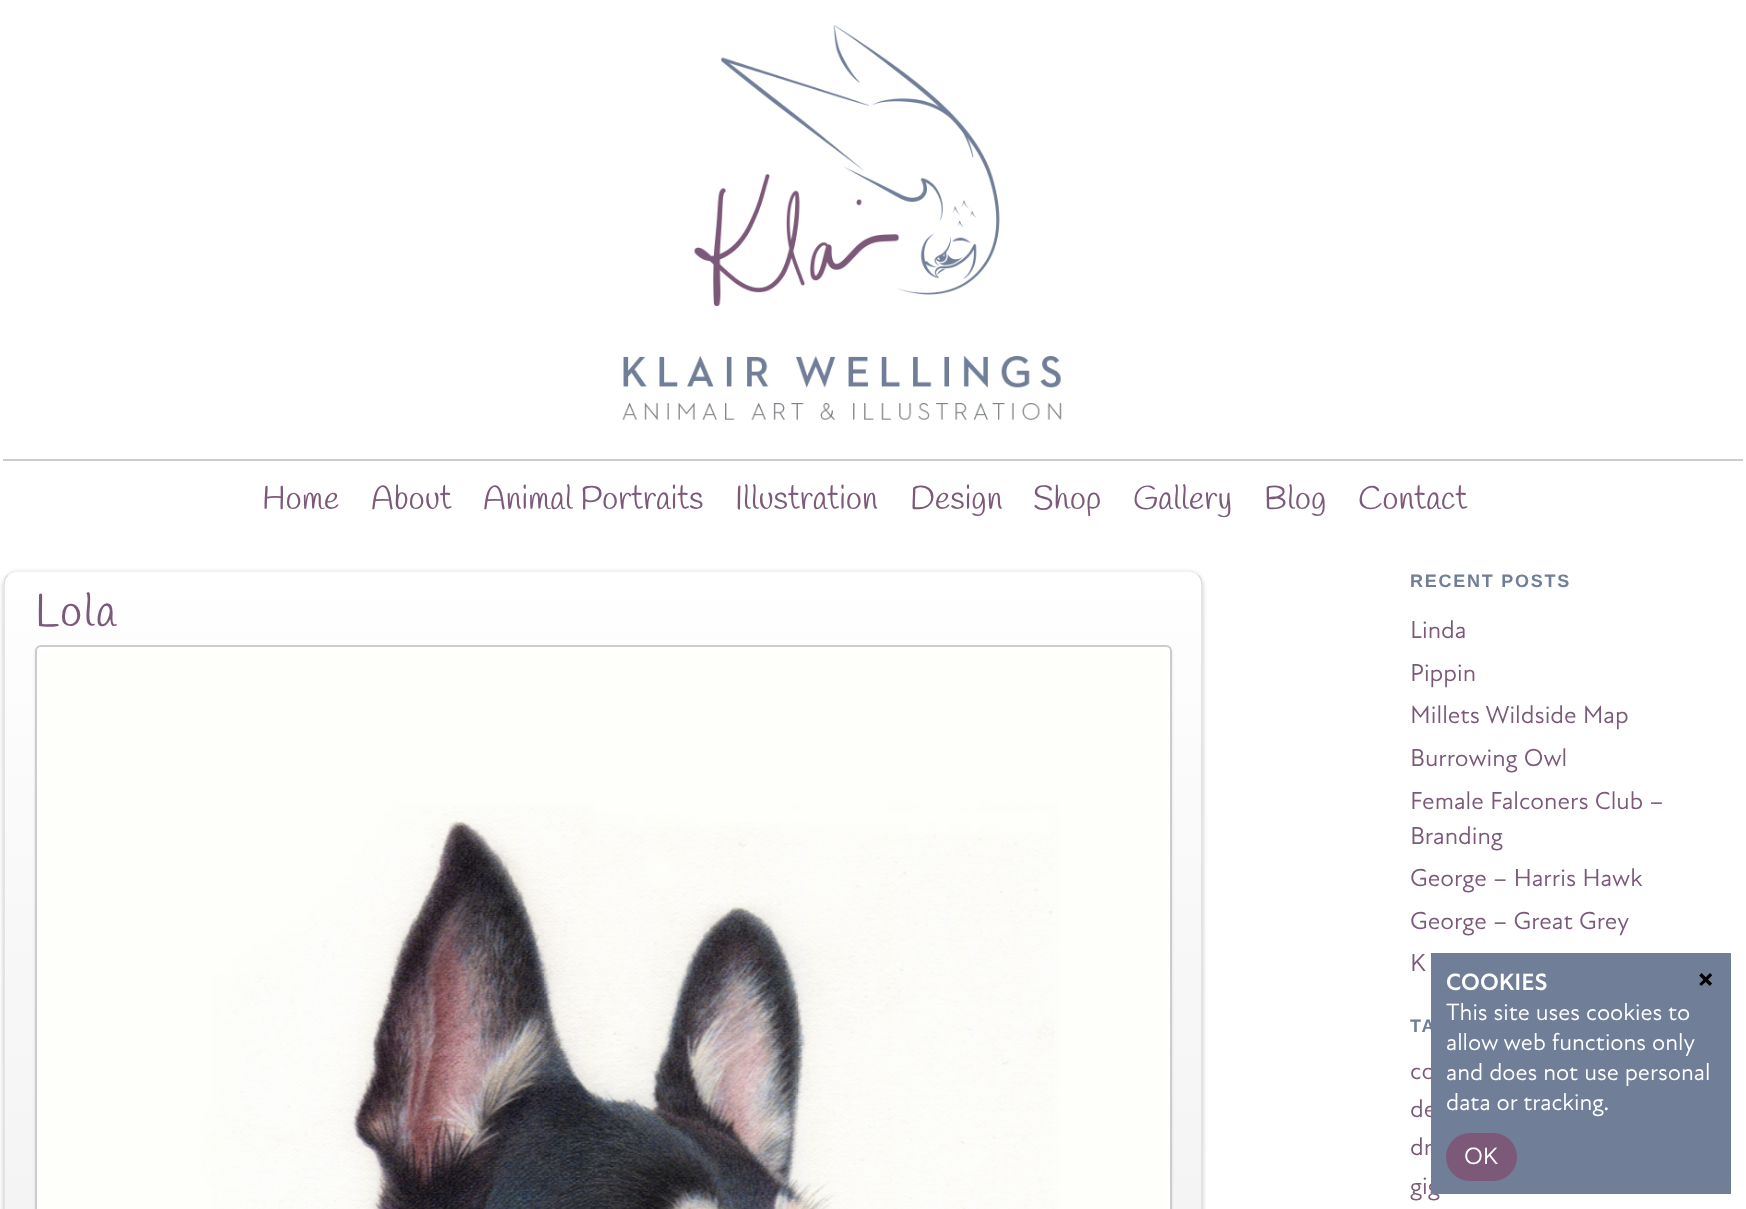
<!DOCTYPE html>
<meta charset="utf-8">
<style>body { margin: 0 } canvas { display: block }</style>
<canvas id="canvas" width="1746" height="1209"></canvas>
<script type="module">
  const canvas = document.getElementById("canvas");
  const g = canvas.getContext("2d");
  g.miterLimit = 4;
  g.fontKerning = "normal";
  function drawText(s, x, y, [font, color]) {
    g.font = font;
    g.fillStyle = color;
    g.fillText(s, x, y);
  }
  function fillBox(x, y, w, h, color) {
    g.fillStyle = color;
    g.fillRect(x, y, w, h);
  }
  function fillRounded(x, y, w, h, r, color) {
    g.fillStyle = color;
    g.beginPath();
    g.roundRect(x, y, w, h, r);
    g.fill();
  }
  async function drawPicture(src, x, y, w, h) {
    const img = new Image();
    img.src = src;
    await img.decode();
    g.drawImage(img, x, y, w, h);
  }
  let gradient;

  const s1 = ["33px Handlee", "#7C5979"];
  const s2 = ["45px Handlee", "#7C5979"];
  const s3 = ["bold 18px Liberation Sans", "#707E98"];
  const s4 = ["25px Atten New", "#7C5979"];
  const s5 = ["bold 24px Atten New", "#FFFFFF"];
  const s6 = ["24px Atten New", "#FFFFFF"];
  const s7 = ["bold 30px Atten New", "#000000"];

  fillBox(0, 0, 1746, 1209, "#FFFFFF");
  await drawPicture("pic1.png", 622, 25, 440, 395);
  fillBox(3, 459, 1740, 2, "#CCCCCC");
  drawText("Home", 262, 509, s1);
  drawText("About", 371, 509, s1);
  drawText("Animal Portraits", 483, 509, s1);
  drawText("Illustration", 735, 509, s1);
  drawText("Design", 910, 509, s1);
  drawText("Shop", 1033, 509, s1);
  drawText("Gallery", 1133, 509, s1);
  drawText("Blog", 1264, 509, s1);
  drawText("Contact", 1358, 509, s1);
  g.fillStyle = "rgba(0, 0, 0, 0.2)";
  g.filter = "blur(2px)";
  g.beginPath();
  g.roundRect(3, 572, 1200, 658, 15);
  g.fill();
  g.filter = "none";
  fillRounded(3, 570, 1200, 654, 15, "#FFFFFF");
  g.save();
  g.beginPath();
  g.roundRect(3, 570, 1200, 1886, 15);
  g.clip();
  gradient = g.createLinearGradient(603, 572, 603, 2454);
  gradient.addColorStop(0, "rgba(255, 255, 255, 0.35)");
  gradient.addColorStop(0.66, "rgba(170, 170, 170, 0.15)");
  gradient.addColorStop(1, "rgba(0, 0, 0, 0.05)");
  g.fillStyle = gradient;
  g.fillRect(3, 572, 1200, 637);
  g.restore();
  g.beginPath();
  g.moveTo(8, 575);
  g.bezierCurveTo(10.5, 572.5, 14, 571, 18, 571);
  g.lineTo(1188, 571);
  g.bezierCurveTo(1192, 571, 1195.5, 572.5, 1198, 575);
  g.strokeStyle = "#EFEFEF";
  g.lineWidth = 1.5;
  g.stroke();
  g.beginPath();
  g.moveTo(1198, 575);
  g.bezierCurveTo(1200.5, 577.5, 1202, 581, 1202, 585);
  g.lineTo(1202, 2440.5);
  g.bezierCurveTo(1202, 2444.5, 1200.5, 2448, 1198, 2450.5);
  g.strokeStyle = "#DDDDDD";
  g.stroke();
  g.beginPath();
  g.moveTo(8, 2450.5);
  g.bezierCurveTo(5.5, 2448, 4, 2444.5, 4, 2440.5);
  g.lineTo(4, 585);
  g.bezierCurveTo(4, 581, 5.5, 577.5, 8, 575);
  g.stroke();
  g.letterSpacing = "1.5px";
  drawText("Lola", 35, 626, s2);
  g.fillStyle = "rgba(0, 0, 0, 0.1)";
  g.filter = "blur(1.5px)";
  g.beginPath();
  g.roundRect(35, 647, 1137, 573, 6);
  g.fill();
  g.filter = "none";
  g.fillStyle = "#FFFFFF";
  g.beginPath();
  g.roundRect(36, 646, 1135, 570, 5);
  g.fill();
  g.strokeStyle = "#CCCCCC";
  g.lineWidth = 2;
  g.stroke();
  await drawPicture("pic2.png", 41, 651, 1124, 558);
  g.letterSpacing = "1.75px";
  drawText("RECENT POSTS", 1410, 587, s3);
  g.letterSpacing = "0px";
  drawText("Linda", 1410, 638, s4);
  drawText("Pippin", 1410, 681, s4);
  drawText("Millets Wildside Map", 1410, 723, s4);
  drawText("Burrowing Owl", 1410, 766, s4);
  drawText("Female Falconers Club –", 1410, 809, s4);
  drawText("Branding", 1410, 844, s4);
  drawText("George – Harris Hawk", 1410, 886, s4);
  drawText("George – Great Grey", 1410, 929, s4);
  drawText("K", 1410, 971, s4);
  g.letterSpacing = "1.75px";
  drawText("TA", 1410, 1032, s3);
  g.letterSpacing = "0px";
  drawText("co", 1410, 1079, s4);
  drawText("de", 1410, 1117, s4);
  drawText("dr", 1410, 1155, s4);
  drawText("gig", 1410, 1194, s4);
  fillBox(1431, 953, 300, 241, "#707E98");
  drawText("COOKIES", 1446, 990, s5);
  drawText("This site uses cookies to", 1446, 1020, s6);
  drawText("allow web functions only", 1446, 1050, s6);
  drawText("and does not use personal", 1446, 1080, s6);
  drawText("data or tracking.", 1446, 1110, s6);
  fillRounded(1446, 1133, 71, 48, 24, "#7C5979");
  drawText("OK", 1464, 1164, s6);
  drawText("×", 1697, 987, s7);
</script>
